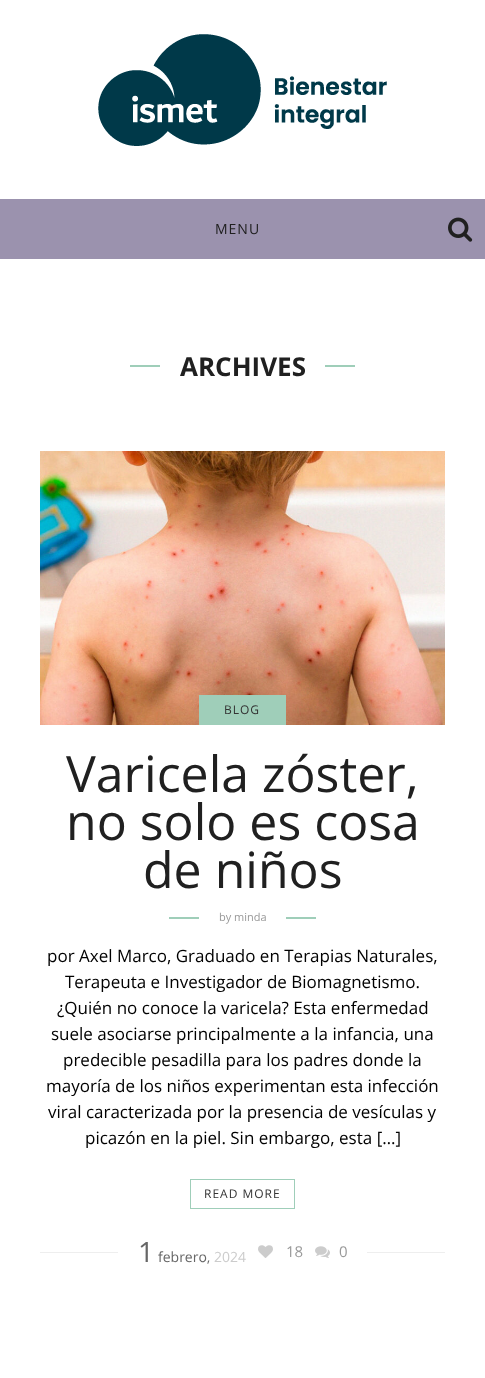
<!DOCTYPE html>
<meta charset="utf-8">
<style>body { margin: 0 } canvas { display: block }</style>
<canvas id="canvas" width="485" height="1378"></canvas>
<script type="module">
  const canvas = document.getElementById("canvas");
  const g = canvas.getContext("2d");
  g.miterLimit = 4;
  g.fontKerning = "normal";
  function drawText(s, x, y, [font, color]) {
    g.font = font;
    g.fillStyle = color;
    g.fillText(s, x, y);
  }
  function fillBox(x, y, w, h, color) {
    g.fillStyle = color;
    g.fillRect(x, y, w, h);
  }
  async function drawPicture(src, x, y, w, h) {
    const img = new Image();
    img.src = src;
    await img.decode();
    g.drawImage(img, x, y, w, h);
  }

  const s1 = ["14px Open Sans", "#202020"];
  const s2 = ["bold 26px Open Sans", "#202020"];
  const s3 = ["12px Open Sans", "#333333"];
  const s4 = ["50px Open Sans", "#202020"];
  const s5 = ["11px Open Sans", "#999999"];
  const s6 = ["17px Open Sans", "#000000"];
  const s7 = ["28px Open Sans", "#666666"];
  const s8 = ["14px Open Sans", "#666666"];
  const s9 = ["14px Open Sans", "#CCCCCC"];
  const s10 = ["15px Open Sans", "#999999"];

  fillBox(0, 0, 485, 1378, "#FFFFFF");
  await drawPicture("pic1.png", 98, 34, 289, 112);
  fillBox(0, 199, 485, 60, "#9B92AE");
  g.letterSpacing = "1px";
  drawText("MENU", 215, 234, s1);
  await drawPicture("pic2.png", 448, 217, 25, 25);
  fillBox(130, 365, 30, 2, "#9FCEB9");
  g.letterSpacing = "0px";
  drawText("ARCHIVES", 180, 376, s2);
  fillBox(325, 365, 30, 2, "#9FCEB9");
  await drawPicture("pic3.png", 40, 451, 405, 274);
  fillBox(199, 695, 87, 30, "#9FCEB9");
  g.letterSpacing = "1px";
  drawText("BLOG", 224, 714, s3);
  g.letterSpacing = "0px";
  drawText("Varicela zóster,", 66, 792, s4);
  drawText("no solo es cosa", 66, 840, s4);
  drawText("de niños", 143, 888, s4);
  fillBox(169, 917, 30, 2, "#9FCEB9");
  drawText("by minda", 219, 921, s5);
  fillBox(286, 917, 30, 2, "#9FCEB9");
  drawText("por Axel Marco, Graduado en Terapias Naturales,", 47, 962, s6);
  drawText("Terapeuta e Investigador de Biomagnetismo.", 65, 988, s6);
  drawText("¿Quién no conoce la varicela? Esta enfermedad", 57, 1014, s6);
  drawText("suele asociarse principalmente a la infancia, una", 51, 1040, s6);
  drawText("predecible pesadilla para los padres donde la", 63, 1066, s6);
  drawText("mayoría de los niños experimentan esta infección", 46, 1092, s6);
  drawText("viral caracterizada por la presencia de vesículas y", 48, 1118, s6);
  drawText("picazón en la piel. Sin embargo, esta […]", 85, 1144, s6);
  g.strokeStyle = "#9FCEB9";
  g.strokeRect(190.5, 1179.5, 104, 29);
  g.letterSpacing = "1px";
  drawText("READ MORE", 204, 1198, s3);
  fillBox(40, 1252, 405, 1, "#EEEEEE");
  fillBox(118, 1252, 249, 1, "#FFFFFF");
  g.letterSpacing = "0px";
  drawText("1", 138, 1262, s7);
  drawText("febrero,", 158, 1262, s8);
  drawText("2024", 214, 1262, s9);
  await drawPicture("pic4.png", 258, 1245, 15, 13);
  drawText("18", 286, 1257, s10);
  await drawPicture("pic5.png", 315, 1246, 15, 12);
  drawText("0", 339, 1257, s10);
</script>
